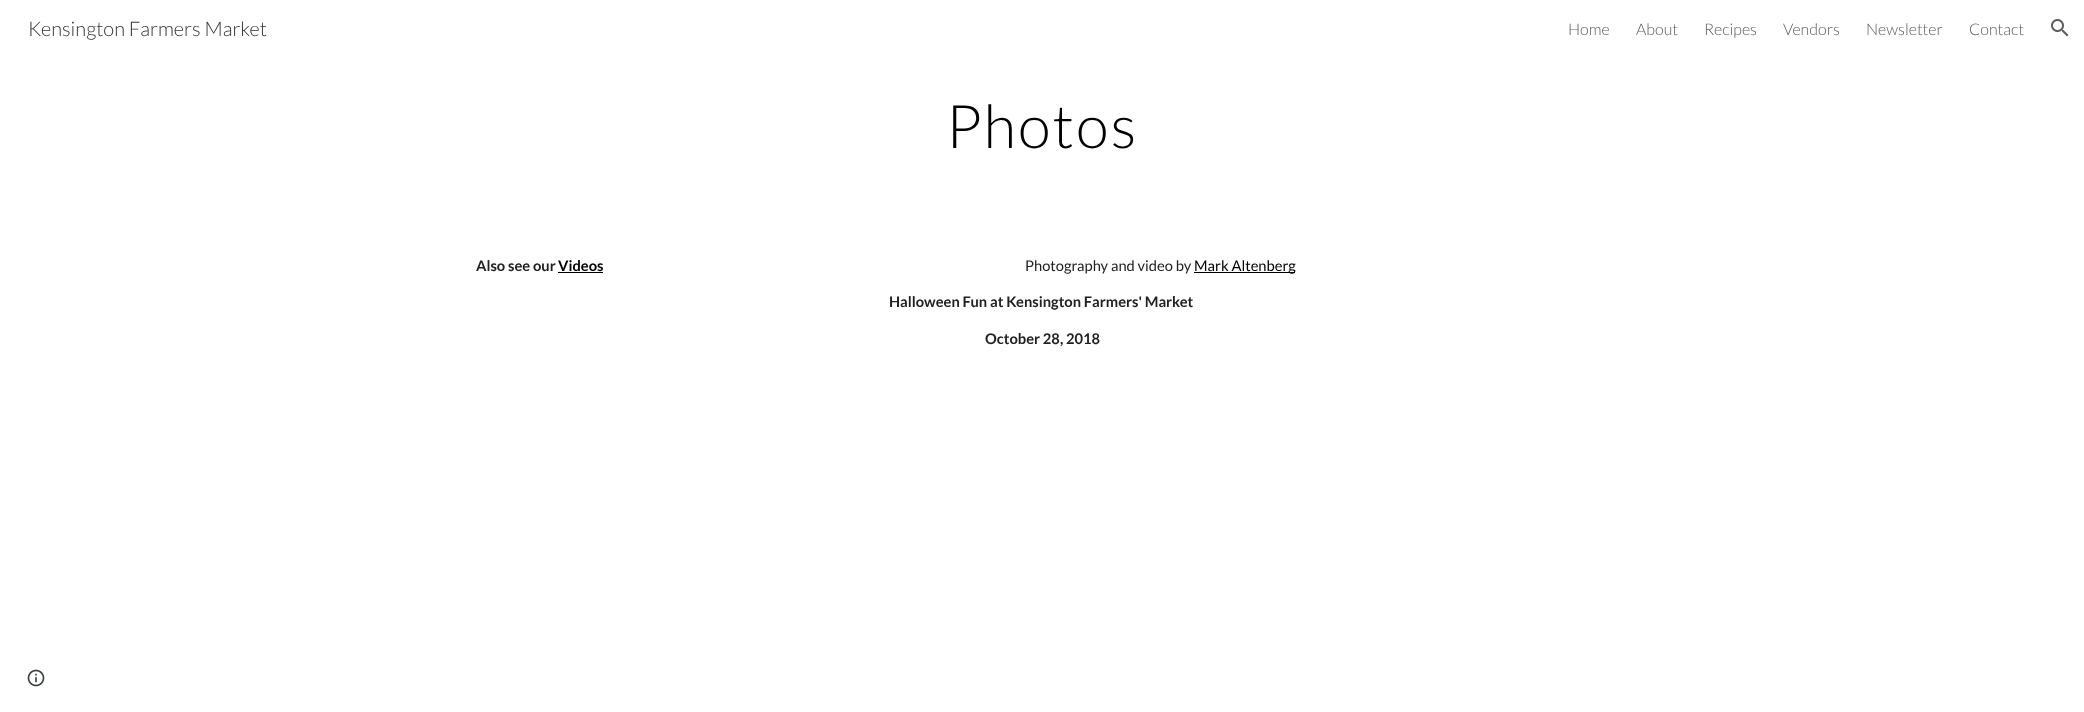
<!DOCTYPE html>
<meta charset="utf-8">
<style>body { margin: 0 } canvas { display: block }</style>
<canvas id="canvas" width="2084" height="712"></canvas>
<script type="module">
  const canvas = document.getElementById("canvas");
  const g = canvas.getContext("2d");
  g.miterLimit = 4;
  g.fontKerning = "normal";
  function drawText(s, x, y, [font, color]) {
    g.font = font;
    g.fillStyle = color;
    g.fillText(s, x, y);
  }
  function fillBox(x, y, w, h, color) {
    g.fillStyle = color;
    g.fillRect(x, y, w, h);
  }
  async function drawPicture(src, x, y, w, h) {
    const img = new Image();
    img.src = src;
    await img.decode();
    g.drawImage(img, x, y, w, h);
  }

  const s1 = ["300 20px Lato", "#333333"];
  const s2 = ["300 16px Lato", "#5C5C5C"];
  const s3 = ["300 60px Lato", "#000000"];
  const s4 = ["bold 14.7px Lato", "#212121"];
  const s5 = ["bold 14.7px Lato", "#000000"];
  const s6 = ["14.7px Lato", "#212121"];
  const s7 = ["14.7px Lato", "#000000"];

  fillBox(0, 0, 2084, 712, "#FFFFFF");
  drawText("Kensington Farmers Market", 28, 36, s1);
  drawText("Home", 1568, 35, s2);
  drawText("About", 1636, 35, s2);
  drawText("Recipes", 1704, 35, s2);
  drawText("Vendors", 1783, 35, s2);
  drawText("Newsletter", 1866, 35, s2);
  drawText("Contact", 1969, 35, s2);
  await drawPicture("pic1.png", 2051, 19, 18, 18);
  g.letterSpacing = "2px";
  drawText("Photos", 946, 148, s3);
  g.letterSpacing = "0px";
  drawText("Also see our", 476, 271, s4);
  drawText("Videos", 558, 271, s5);
  fillBox(558, 272, 45, 1, "#000000");
  drawText("Photography and video by", 1025, 271, s6);
  fillBox(1194, 272, 101, 1, "#000000");
  drawText("Mark Altenberg", 1194, 271, s7);
  drawText("Halloween Fun at Kensington Farmers' Market", 889, 307, s4);
  drawText("October 28, 2018", 985, 344, s4);
  await drawPicture("pic2.png", 27, 669, 18, 18);
</script>
